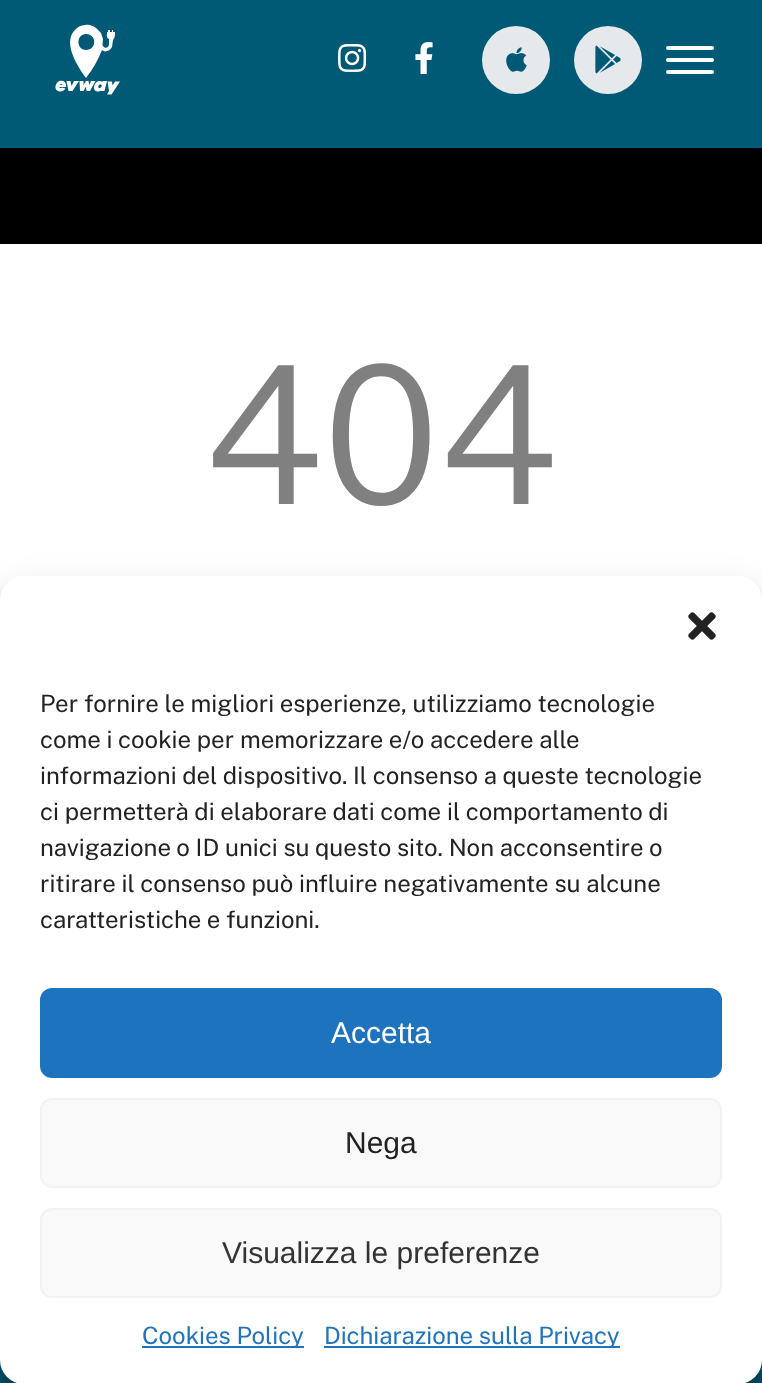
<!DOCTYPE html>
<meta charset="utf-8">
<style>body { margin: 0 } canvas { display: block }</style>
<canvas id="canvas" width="762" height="1383"></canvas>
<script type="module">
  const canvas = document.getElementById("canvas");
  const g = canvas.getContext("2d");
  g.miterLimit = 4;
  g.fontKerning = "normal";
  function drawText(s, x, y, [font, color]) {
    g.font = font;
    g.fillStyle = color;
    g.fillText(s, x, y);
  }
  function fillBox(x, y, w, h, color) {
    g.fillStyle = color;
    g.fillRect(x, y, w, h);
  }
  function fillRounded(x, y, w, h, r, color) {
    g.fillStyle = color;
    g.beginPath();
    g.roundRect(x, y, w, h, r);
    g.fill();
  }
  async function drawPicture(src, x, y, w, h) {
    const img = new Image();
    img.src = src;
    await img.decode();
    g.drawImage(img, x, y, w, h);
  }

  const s1 = ["300 192px Public Sans", "#808080"];
  const s2 = ["24px Public Sans", "#222222"];
  const s3 = ["30px Liberation Sans", "#FFFFFF"];
  const s4 = ["30px Liberation Sans", "#222222"];
  const s5 = ["30px Liberation Sans", "#333333"];
  const s6 = ["24px Public Sans", "#1E73BE"];

  fillBox(0, 0, 762, 1383, "#FFFFFF");
  fillBox(0, 0, 762, 148, "#005A76");
  g.fillStyle = "#FFFFFF";
  g.beginPath();
  g.moveTo(113, 32);
  g.lineTo(113, 30);
  g.lineTo(112, 30);
  g.lineTo(112, 32);
  g.lineTo(110, 32);
  g.lineTo(110, 30);
  g.lineTo(108, 30);
  g.lineTo(108, 32);
  g.lineTo(107, 32);
  g.bezierCurveTo(107, 35, 106, 38, 109, 39);
  g.lineTo(109, 44);
  g.bezierCurveTo(109, 48, 105, 49, 103, 46);
  g.bezierCurveTo(102, 45, 103, 41, 103, 39);
  g.lineTo(101, 33);
  g.lineTo(99, 31);
  g.bezierCurveTo(96, 27, 90, 24, 85, 25);
  g.bezierCurveTo(81, 25, 77, 27, 74, 31);
  g.bezierCurveTo(63, 44, 78, 67, 86, 78);
  g.bezierCurveTo(93, 69, 98, 60, 102, 50);
  g.bezierCurveTo(105, 53, 110, 51, 112, 47);
  g.lineTo(113, 40);
  g.bezierCurveTo(115, 38, 115, 35, 115, 32);
  g.closePath();
  g.moveTo(86, 50);
  g.bezierCurveTo(76, 50, 76, 34, 86, 34);
  g.bezierCurveTo(97, 34, 97, 50, 86, 50);
  g.closePath();
  g.moveTo(102, 50);
  g.bezierCurveTo(101, 50, 101, 50, 101, 50);
  g.closePath();
  g.fill("evenodd");
  g.beginPath();
  g.moveTo(104.5, 91);
  g.lineTo(100.5, 91);
  g.lineTo(100.5, 90.5);
  g.bezierCurveTo(99.5, 91.5, 98.5, 91.5, 97.5, 91.5);
  g.bezierCurveTo(91.5, 91, 94, 81.5, 99, 81);
  g.bezierCurveTo(100.5, 81, 102, 81, 102.5, 82.5);
  g.lineTo(102.5, 81);
  g.lineTo(107, 81);
  g.closePath();
  g.moveTo(98.5, 87.5);
  g.bezierCurveTo(99.5, 89.5, 102.5, 86.5, 101.5, 85);
  g.bezierCurveTo(100, 83, 97.5, 86, 98.5, 87.5);
  g.closePath();
  g.fill("evenodd");
  g.beginPath();
  g.moveTo(90, 91);
  g.lineTo(86.5, 91);
  g.lineTo(86, 86.5);
  g.lineTo(83.5, 91);
  g.lineTo(80, 91);
  g.lineTo(79.5, 81);
  g.lineTo(83.5, 81);
  g.lineTo(83.5, 85);
  g.lineTo(86, 81);
  g.lineTo(88.5, 81);
  g.lineTo(89.5, 85);
  g.lineTo(91, 81);
  g.lineTo(95.5, 81);
  g.closePath();
  g.moveTo(72.5, 91);
  g.lineTo(68.5, 91);
  g.lineTo(66.5, 81);
  g.lineTo(70.5, 81);
  g.lineTo(71.5, 86);
  g.lineTo(74, 81);
  g.lineTo(79, 81);
  g.closePath();
  g.fill();
  g.beginPath();
  g.moveTo(65, 82.5);
  g.bezierCurveTo(66, 83.5, 66.5, 85, 66, 87);
  g.lineTo(59.5, 87);
  g.bezierCurveTo(59.5, 88.5, 61.5, 88.5, 62, 87.5);
  g.lineTo(65.5, 88.5);
  g.bezierCurveTo(62.5, 94, 53, 91.5, 56, 84.5);
  g.bezierCurveTo(56.5, 83, 58, 81.5, 59.5, 81);
  g.bezierCurveTo(61.5, 80.5, 64, 81, 65, 82.5);
  g.closePath();
  g.moveTo(62.5, 85);
  g.bezierCurveTo(62, 83.5, 60.5, 84, 59.5, 85);
  g.closePath();
  g.fill("evenodd");
  g.beginPath();
  g.moveTo(115, 81.5);
  g.lineTo(112.5, 85.5);
  g.lineTo(112, 81.5);
  g.lineTo(107.5, 81.5);
  g.lineTo(109, 91);
  g.lineTo(107, 94.5);
  g.lineTo(111.5, 94.5);
  g.lineTo(120, 81.5);
  g.closePath();
  g.fill();
  await drawPicture("pic1.png", 338, 44, 29, 28);
  await drawPicture("pic2.png", 415, 42, 18, 32);
  g.fillStyle = "#E5E9EC";
  g.beginPath();
  g.arc(516, 60, 34, 0, Math.PI * 2);
  g.fill();
  await drawPicture("pic3.png", 506, 47, 21, 25);
  g.beginPath();
  g.arc(608, 60, 34, 0, Math.PI * 2);
  g.fill();
  await drawPicture("pic4.png", 595, 45, 26, 29);
  fillRounded(666, 46, 48, 4, 2, "#FFFFFF");
  fillRounded(666, 58, 48, 4, 2, "#FFFFFF");
  fillRounded(666, 70, 48, 4, 2, "#FFFFFF");
  fillBox(0, 148, 762, 96, "#000000");
  drawText("404", 204, 504, s1);
  fillBox(0, 1360, 762, 23, "#005A76");
  g.fillStyle = "rgba(0, 0, 0, 0.23)";
  g.filter = "blur(6px)";
  g.beginPath();
  g.roundRect(0, 588, 762, 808, 24);
  g.fill();
  g.filter = "none";
  g.fillStyle = "rgba(0, 0, 0, 0.19)";
  g.filter = "blur(20px)";
  g.beginPath();
  g.roundRect(0, 596, 762, 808, 24);
  g.fill();
  g.filter = "none";
  fillRounded(0, 576, 762, 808, 24, "#FFFFFF");
  await drawPicture("pic5.png", 688, 612, 28, 28);
  drawText("Per fornire le migliori esperienze, utilizziamo tecnologie", 40, 712, s2);
  drawText("come i cookie per memorizzare e/o accedere alle", 40, 748, s2);
  drawText("informazioni del dispositivo. Il consenso a queste tecnologie", 40, 784, s2);
  drawText("ci permetterà di elaborare dati come il comportamento di", 40, 820, s2);
  drawText("navigazione o ID unici su questo sito. Non acconsentire o", 40, 856, s2);
  drawText("ritirare il consenso può influire negativamente su alcune", 40, 892, s2);
  drawText("caratteristiche e funzioni.", 40, 928, s2);
  g.fillStyle = "#1E73BE";
  g.beginPath();
  g.roundRect(41, 989, 680, 88, 11);
  g.fill();
  g.strokeStyle = "#1E73BE";
  g.lineWidth = 2;
  g.stroke();
  drawText("Accetta", 331, 1043, s3);
  g.fillStyle = "#F9F9F9";
  g.beginPath();
  g.roundRect(41, 1099, 680, 88, 11);
  g.fill();
  g.strokeStyle = "#F2F2F2";
  g.stroke();
  drawText("Nega", 345, 1153, s4);
  g.fillStyle = "#F9F9F9";
  g.beginPath();
  g.roundRect(41, 1209, 680, 88, 11);
  g.fill();
  g.stroke();
  drawText("Visualizza le preferenze", 222, 1263, s5);
  fillBox(142, 1346, 162, 2, "#1E73BE");
  drawText("Cookies Policy", 142, 1344, s6);
  fillBox(324, 1346, 296, 2, "#1E73BE");
  drawText("Dichiarazione sulla Privacy", 324, 1344, s6);
</script>
